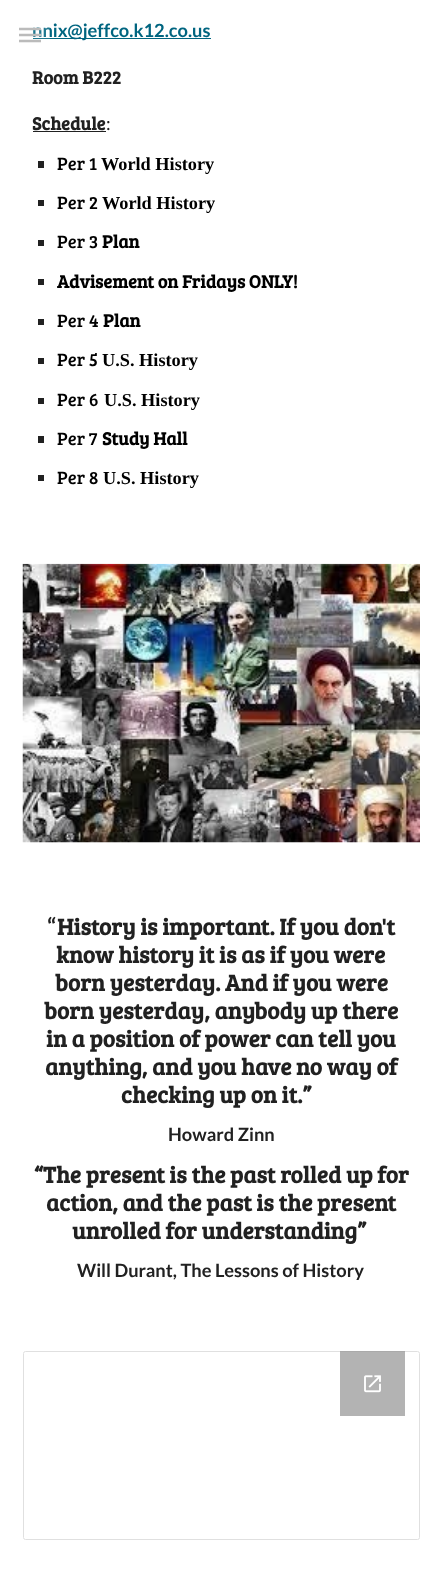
<!DOCTYPE html>
<meta charset="utf-8">
<style>body { margin: 0 } canvas { display: block }</style>
<canvas id="canvas" width="442" height="1569"></canvas>
<script type="module">
  const canvas = document.getElementById("canvas");
  const g = canvas.getContext("2d");
  g.miterLimit = 4;
  g.fontKerning = "normal";
  function drawText(s, x, y, [font, color]) {
    g.font = font;
    g.fillStyle = color;
    g.fillText(s, x, y);
  }
  function fillBox(x, y, w, h, color) {
    g.fillStyle = color;
    g.fillRect(x, y, w, h);
  }
  async function drawPicture(src, x, y, w, h) {
    const img = new Image();
    img.src = src;
    await img.decode();
    g.drawImage(img, x, y, w, h);
  }

  const s1 = ["bold 18.3px Lato", "#006580"];
  const s2 = ["bold 18.3px Bree Serif", "#212121"];
  const s3 = ["18.3px Lato", "#212121"];
  const s4 = ["18.3px Bree Serif", "#000000"];
  const s5 = ["bold 18.3px Liberation Serif", "#000000"];
  const s6 = ["bold 18.3px Bree Serif", "#000000"];
  const s7 = ["bold 23.3px Lato", "#212121"];
  const s8 = ["bold 23.3px Bree Serif", "#212121"];
  const s9 = ["bold 18.3px Lato", "#212121"];

  fillBox(0, 0, 442, 1569, "#FFFFFF");
  fillBox(33, 38, 178, 1, "#006580");
  drawText("nnix@jeffco.k12.co.us", 32, 37, s1);
  drawText("Room B222", 32, 84, s2);
  drawText("Schedule", 32, 130, s2);
  fillBox(33, 131, 73, 1, "#212121");
  drawText(":", 106, 130, s3);
  fillBox(38, 161, 6, 7, "#212121");
  drawText("Per 1", 57, 170, s4);
  drawText("World History", 101, 170, s5);
  fillBox(38, 200, 6, 6, "#212121");
  drawText("Per 2", 57, 209, s4);
  drawText("World History", 102, 209, s5);
  fillBox(38, 240, 6, 6, "#212121");
  drawText("Per 3", 57, 248, s4);
  drawText("Plan", 102, 248, s6);
  fillBox(38, 279, 6, 6, "#212121");
  drawText("Advisement on Fridays ONLY!", 57, 288, s6);
  fillBox(38, 319, 6, 6, "#212121");
  drawText("Per 4", 57, 327, s4);
  drawText("Plan", 103, 327, s6);
  fillBox(38, 358, 6, 6, "#212121");
  drawText("Per 5", 57, 366, s4);
  drawText("U.S. History", 102, 366, s5);
  fillBox(38, 398, 6, 6, "#212121");
  drawText("Per 6", 57, 406, s4);
  drawText("U.S. History", 104, 406, s5);
  fillBox(38, 436, 6, 7, "#212121");
  drawText("Per 7", 57, 445, s4);
  drawText("Study Hall", 102, 445, s6);
  fillBox(38, 475, 6, 6, "#212121");
  drawText("Per 8", 57, 484, s4);
  drawText("U.S. History", 103, 484, s5);
  await drawPicture("pic1.png", 22, 563, 398, 280);
  drawText("“", 47, 935, s7);
  drawText("History is important. If you don't", 57, 935, s8);
  drawText("know history it is as if you were", 56, 963, s8);
  drawText("born yesterday. And if you were", 55, 991, s8);
  drawText("born yesterday, anybody up there", 44, 1019, s8);
  drawText("in a position of power can tell you", 46, 1047, s8);
  drawText("anything, and you have no way of", 45, 1075, s8);
  drawText("checking up on it.”", 121, 1103, s8);
  drawText("Howard Zinn", 168, 1141, s9);
  drawText("“The present is the past rolled up for", 34, 1183, s8);
  drawText("action, and the past is the present", 46, 1211, s8);
  drawText("unrolled for understanding”", 72, 1239, s8);
  drawText("Will Durant, The Lessons of History", 77, 1277, s9);
  g.beginPath();
  g.roundRect(23.5, 1351.5, 396, 188, 2);
  g.strokeStyle = "#E0E0E0";
  g.stroke();
  fillBox(340, 1351, 65, 65, "rgba(147, 147, 147, 0.7)");
  await drawPicture("pic2.png", 364, 1375, 17, 18);
  g.beginPath();
  g.moveTo(19, 29);
  g.lineTo(41, 29);
  g.moveTo(19, 35);
  g.lineTo(41, 35);
  g.moveTo(19, 41);
  g.lineTo(41, 41);
  g.strokeStyle = "#B2B2B2";
  g.lineWidth = 2.5;
  g.stroke();
  fillBox(19, 27, 31, 15, "rgba(255, 255, 255, 0.12)");
</script>
